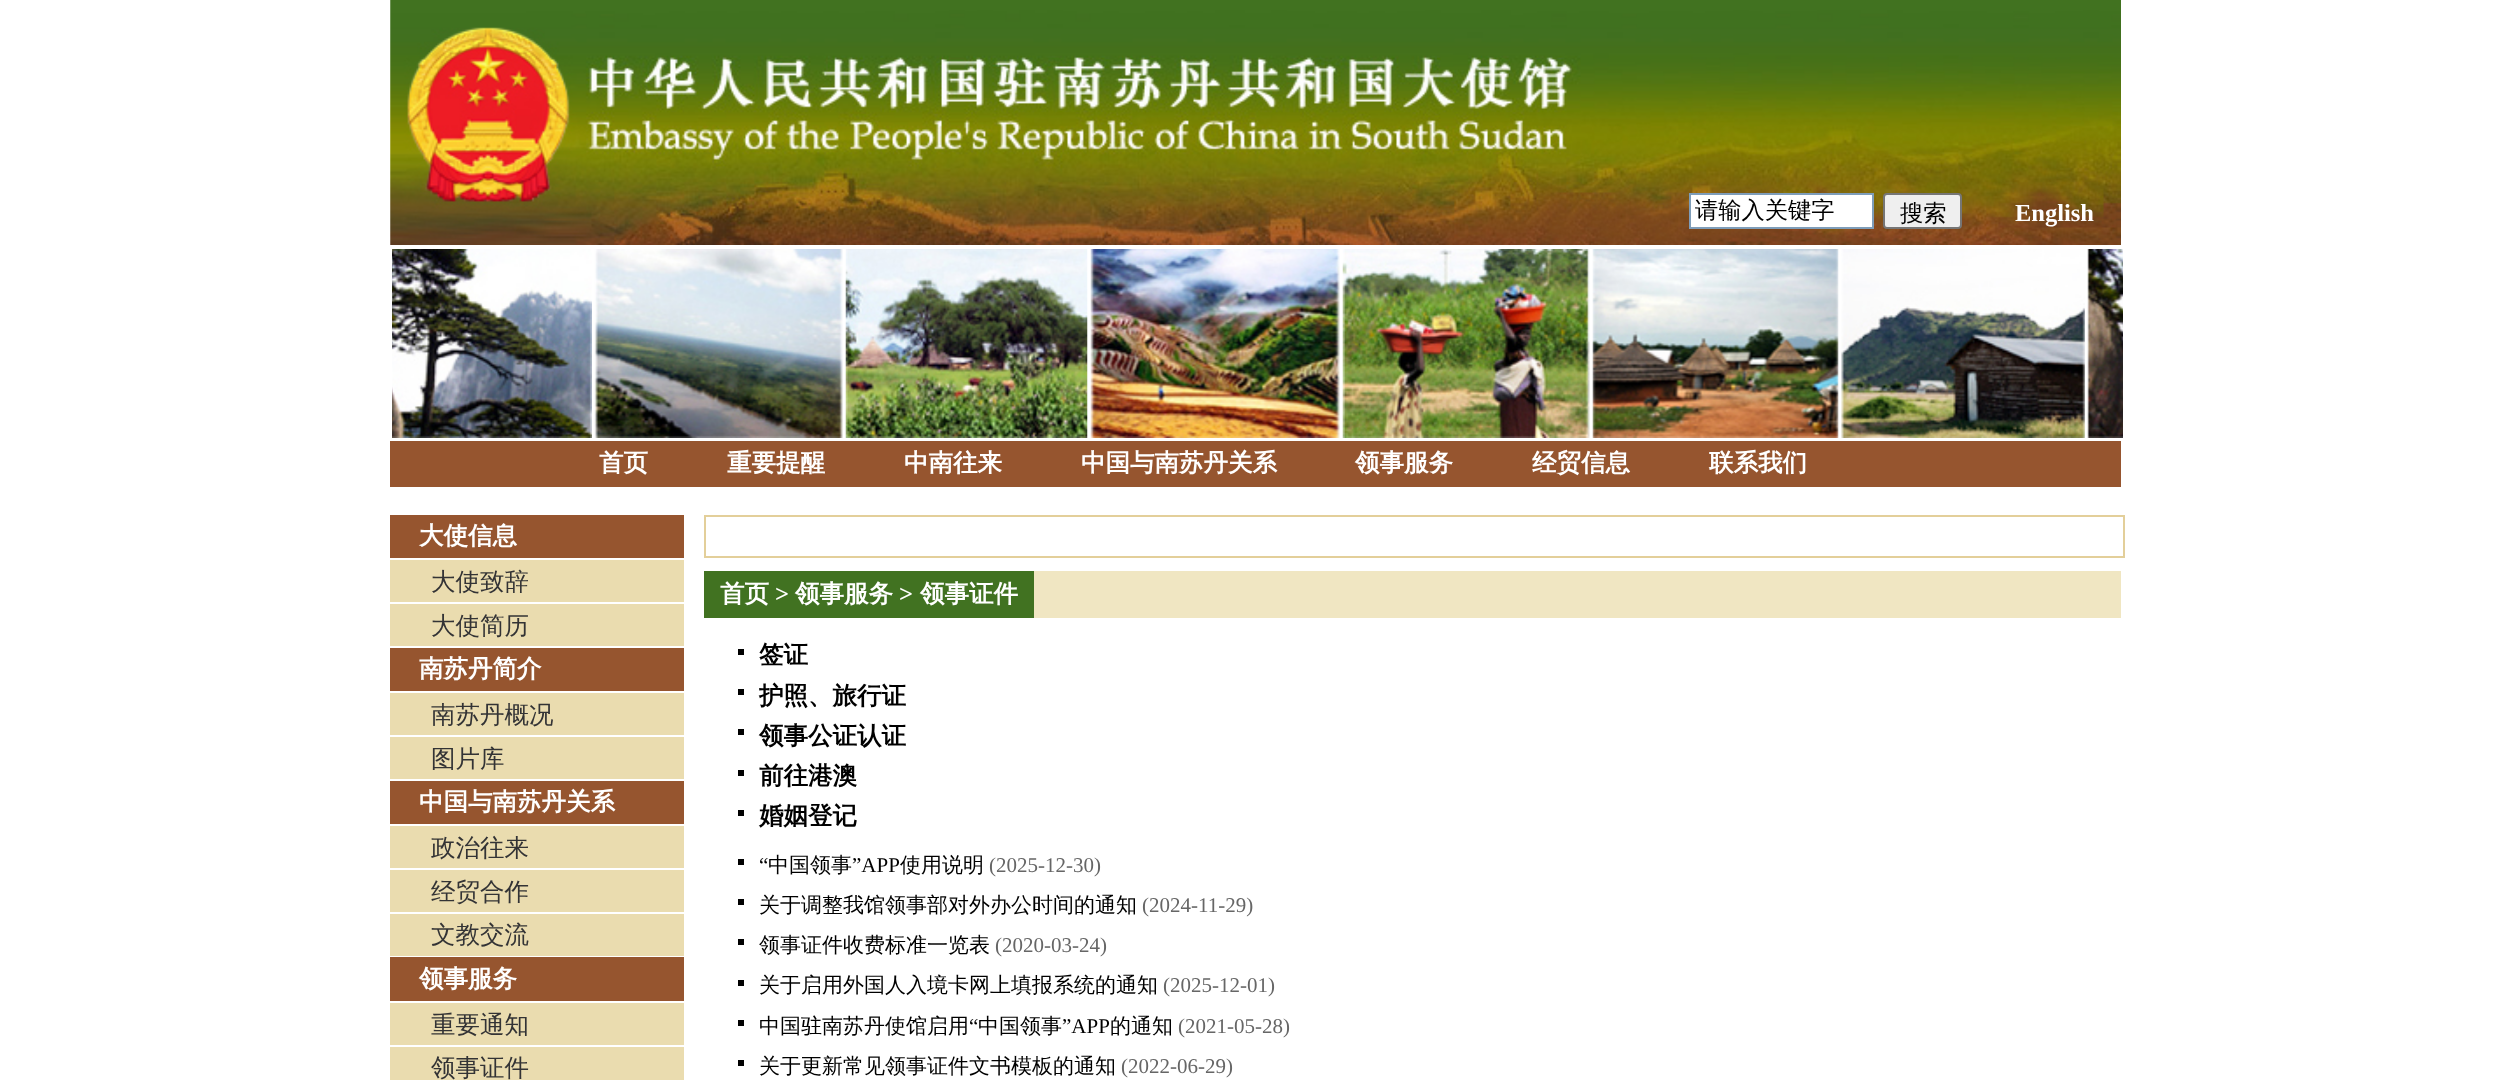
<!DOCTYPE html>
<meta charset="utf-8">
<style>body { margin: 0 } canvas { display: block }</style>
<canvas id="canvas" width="2512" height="1080"></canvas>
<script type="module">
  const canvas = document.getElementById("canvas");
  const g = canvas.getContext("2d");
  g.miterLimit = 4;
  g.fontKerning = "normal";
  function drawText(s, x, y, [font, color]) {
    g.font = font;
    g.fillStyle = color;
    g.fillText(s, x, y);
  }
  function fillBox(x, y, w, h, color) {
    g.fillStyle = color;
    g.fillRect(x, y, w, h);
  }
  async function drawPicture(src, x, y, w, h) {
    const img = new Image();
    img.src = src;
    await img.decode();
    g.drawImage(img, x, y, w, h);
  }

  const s1 = ["500 23.25px WenQuanYi Zen Hei", "#000000"];
  const s2 = ["bold 24.5px Liberation Serif", "#FFFFFF"];
  const s3 = ["bold 24.5px WenQuanYi Zen Hei", "#FFFFFF"];
  const s4 = ["500 24.5px WenQuanYi Zen Hei", "#333335"];
  const s5 = ["bold 24.5px WenQuanYi Zen Hei", "#000000"];
  const s6 = ["21px Liberation Serif", "#000000"];
  const s7 = ["500 21px WenQuanYi Zen Hei", "#000000"];
  const s8 = ["21px Liberation Serif", "#666666"];

  fillBox(0, 0, 2512, 1080, "#FFFFFF");
  await drawPicture("pic1.png", 390, 0, 1731, 245);
  g.beginPath();
  g.rect(1690, 194, 183, 34);
  g.fill();
  g.strokeStyle = "#7E9DB9";
  g.lineWidth = 2;
  g.stroke();
  drawText("请输入关键字", 1695, 218, s1);
  g.fillStyle = "#EFEFEF";
  g.beginPath();
  g.roundRect(1884, 194, 77, 34, 3);
  g.fill();
  g.strokeStyle = "#767676";
  g.stroke();
  drawText("搜索", 1900, 221, s1);
  drawText("English", 2015, 221, s2);
  await drawPicture("pic2.png", 392, 249, 200, 189);
  await drawPicture("pic3.png", 594, 249, 249, 189);
  await drawPicture("pic4.png", 845, 249, 243, 189);
  await drawPicture("pic5.png", 1090, 249, 250, 189);
  await drawPicture("pic6.png", 1342, 249, 248, 189);
  await drawPicture("pic7.png", 1592, 249, 247, 189);
  await drawPicture("pic8.png", 1841, 249, 244, 189);
  await drawPicture("pic9.png", 2087, 249, 36, 189);
  fillBox(390, 441, 1731, 46, "#96552F");
  drawText("首页", 599, 471, s3);
  drawText("重要提醒", 727, 471, s3);
  drawText("中南往来", 904, 471, s3);
  drawText("中国与南苏丹关系", 1081, 471, s3);
  drawText("领事服务", 1355, 471, s3);
  drawText("经贸信息", 1532, 471, s3);
  drawText("联系我们", 1709, 471, s3);
  fillBox(390, 560, 294, 520, "#EADCAF");
  fillBox(390, 515, 294, 43, "#96552F");
  drawText("大使信息", 419, 544, s3);
  fillBox(390, 602, 294, 2, "#FFFFFF");
  drawText("大使致辞", 431, 590, s4);
  fillBox(390, 646, 294, 2, "#FFFFFF");
  drawText("大使简历", 431, 634, s4);
  fillBox(390, 648, 294, 43, "#96552F");
  fillBox(390, 691, 294, 2, "#FFFFFF");
  drawText("南苏丹简介", 419, 677, s3);
  fillBox(390, 735, 294, 2, "#FFFFFF");
  drawText("南苏丹概况", 431, 723, s4);
  fillBox(390, 779, 294, 2, "#FFFFFF");
  drawText("图片库", 431, 767, s4);
  fillBox(390, 781, 294, 43, "#96552F");
  fillBox(390, 824, 294, 2, "#FFFFFF");
  drawText("中国与南苏丹关系", 419, 810, s3);
  fillBox(390, 868, 294, 2, "#FFFFFF");
  drawText("政治往来", 431, 856, s4);
  fillBox(390, 912, 294, 2, "#FFFFFF");
  drawText("经贸合作", 431, 900, s4);
  fillBox(390, 956, 294, 1, "#FFFFFF");
  drawText("文教交流", 431, 943, s4);
  fillBox(390, 957, 294, 44, "#96552F");
  fillBox(390, 1001, 294, 2, "#FFFFFF");
  drawText("领事服务", 419, 987, s3);
  fillBox(390, 1045, 294, 2, "#FFFFFF");
  drawText("重要通知", 431, 1033, s4);
  drawText("领事证件", 431, 1076, s4);
  g.strokeStyle = "#E3CF9A";
  g.strokeRect(705, 516, 1419, 41);
  fillBox(1034, 571, 1087, 47, "#F0E6C2");
  fillBox(704, 571, 330, 47, "#417221");
  drawText("首页", 720, 602, s3);
  drawText(">", 775, 602, s2);
  drawText("领事服务", 795, 602, s3);
  drawText(">", 899, 602, s2);
  drawText("领事证件", 920, 602, s3);
  fillBox(738, 649, 6, 6, "#000000");
  drawText("签证", 759, 663, s5);
  fillBox(738, 689, 6, 6, "#000000");
  drawText("护照、旅行证", 759, 704, s5);
  fillBox(738, 729, 6, 6, "#000000");
  drawText("领事公证认证", 759, 744, s5);
  fillBox(738, 770, 6, 6, "#000000");
  drawText("前往港澳", 759, 784, s5);
  fillBox(738, 810, 6, 6, "#000000");
  drawText("婚姻登记", 759, 824, s5);
  fillBox(738, 859, 6, 6, "#000000");
  drawText("“", 759, 872, s6);
  drawText("中国领事", 768, 872, s7);
  drawText("”APP", 852, 872, s6);
  drawText("使用说明", 900, 872, s7);
  drawText("(2025-12-30)", 989, 872, s8);
  fillBox(738, 899, 6, 6, "#000000");
  drawText("关于调整我馆领事部对外办公时间的通知", 759, 912, s7);
  drawText("(2024-11-29)", 1142, 912, s8);
  fillBox(738, 939, 6, 6, "#000000");
  drawText("领事证件收费标准一览表", 759, 952, s7);
  drawText("(2020-03-24)", 995, 952, s8);
  fillBox(738, 980, 6, 6, "#000000");
  drawText("关于启用外国人入境卡网上填报系统的通知", 759, 992, s7);
  drawText("(2025-12-01)", 1163, 992, s8);
  fillBox(738, 1020, 6, 6, "#000000");
  drawText("中国驻南苏丹使馆启用", 759, 1033, s7);
  drawText("“", 969, 1033, s6);
  drawText("中国领事", 978, 1033, s7);
  drawText("”APP", 1062, 1033, s6);
  drawText("的通知", 1110, 1033, s7);
  drawText("(2021-05-28)", 1178, 1033, s8);
  fillBox(738, 1060, 6, 6, "#000000");
  drawText("关于更新常见领事证件文书模板的通知", 759, 1073, s7);
  drawText("(2022-06-29)", 1121, 1073, s8);
</script>
